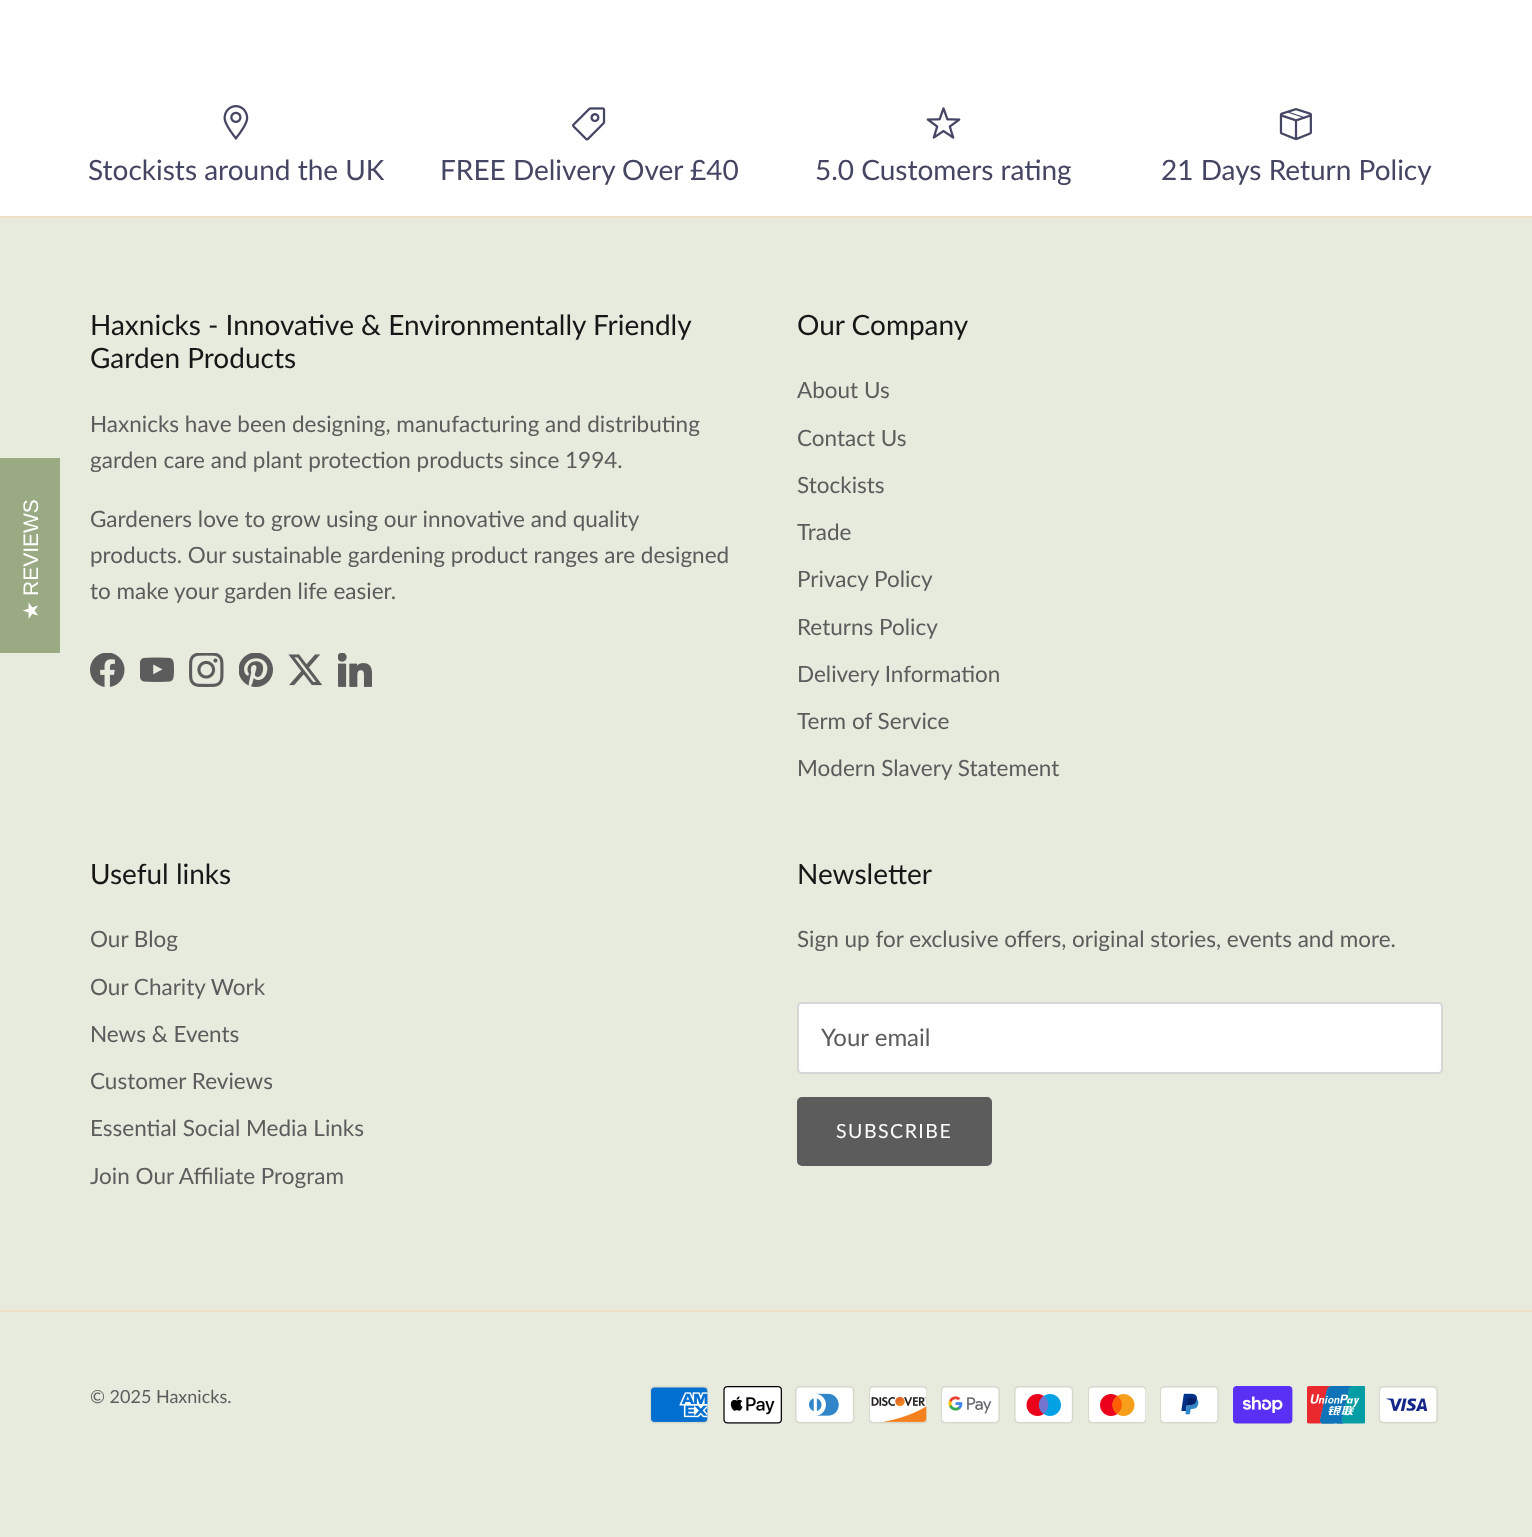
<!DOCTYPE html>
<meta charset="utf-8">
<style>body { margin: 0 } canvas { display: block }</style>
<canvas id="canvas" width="1532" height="1537"></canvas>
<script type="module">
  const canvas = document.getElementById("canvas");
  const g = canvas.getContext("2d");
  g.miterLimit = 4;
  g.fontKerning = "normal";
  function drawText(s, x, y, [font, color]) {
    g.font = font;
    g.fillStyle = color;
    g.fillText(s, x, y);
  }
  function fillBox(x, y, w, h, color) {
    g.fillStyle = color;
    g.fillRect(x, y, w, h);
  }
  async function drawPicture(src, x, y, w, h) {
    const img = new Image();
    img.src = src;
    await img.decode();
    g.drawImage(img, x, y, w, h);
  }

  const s1 = ["28px Lato", "#454564"];
  const s2 = ["28px Lato", "#171717"];
  const s3 = ["22.5px Lato", "#5C5C5C"];
  const s4 = ["24px Lato", "#5C5C5C"];
  const s5 = ["19.5px Lato", "#FFFFFF"];
  const s6 = ["18px Lato", "#5C5C5C"];

  fillBox(0, 0, 1532, 1537, "#FFFFFF");
  fillBox(0, 218, 1532, 1319, "#E6EBDD");
  fillBox(0, 458, 60, 195, "#9AAB84");
  g.font = "21px Liberation Sans";
  g.fillStyle = "#FFFFFF";
  g.save();
  g.translate(38, 596);
  g.rotate(-90 * Math.PI / 180);
  g.fillText("REVIEWS", 0, 0);
  g.restore();
  g.font = "21px DejaVu Sans";
  g.save();
  g.translate(38, 620);
  g.rotate(-90 * Math.PI / 180);
  g.fillText("★", 0, 0);
  g.restore();
  await drawPicture("pic1.png", 223, 105, 26, 35);
  drawText("Stockists around the UK", 88, 180, s1);
  await drawPicture("pic2.png", 572, 107, 34, 34);
  drawText("FREE Delivery Over £40", 440, 180, s1);
  await drawPicture("pic3.png", 926, 107, 35, 32);
  drawText("5.0 Customers rating", 815, 180, s1);
  await drawPicture("pic4.png", 1279, 108, 33, 33);
  drawText("21 Days Return Policy", 1161, 180, s1);
  fillBox(0, 216, 1532, 2, "#EFDFC7");
  drawText("Haxnicks - Innovative & Environmentally Friendly", 90, 335, s2);
  drawText("Garden Products", 90, 368, s2);
  drawText("Haxnicks have been designing, manufacturing and distributing", 90, 432, s3);
  drawText("garden care and plant protection products since 1994.", 90, 468, s3);
  drawText("Gardeners love to grow using our innovative and quality", 90, 527, s3);
  drawText("products. Our sustainable gardening product ranges are designed", 90, 563, s3);
  drawText("to make your garden life easier.", 90, 599, s3);
  await drawPicture("pic5.png", 90, 653, 35, 34);
  await drawPicture("pic6.png", 140, 657, 34, 25);
  await drawPicture("pic7.png", 189, 653, 35, 34);
  await drawPicture("pic8.png", 239, 653, 34, 34);
  await drawPicture("pic9.png", 288, 654, 34, 32);
  await drawPicture("pic10.png", 338, 653, 34, 34);
  drawText("Our Company", 797, 335, s2);
  drawText("About Us", 797, 398, s3);
  drawText("Contact Us", 797, 446, s3);
  drawText("Stockists", 797, 493, s3);
  drawText("Trade", 797, 540, s3);
  drawText("Privacy Policy", 797, 587, s3);
  drawText("Returns Policy", 797, 635, s3);
  drawText("Delivery Information", 797, 682, s3);
  drawText("Term of Service", 797, 729, s3);
  drawText("Modern Slavery Statement", 797, 776, s3);
  drawText("Useful links", 90, 884, s2);
  drawText("Our Blog", 90, 947, s3);
  drawText("Our Charity Work", 90, 995, s3);
  drawText("News & Events", 90, 1042, s3);
  drawText("Customer Reviews", 90, 1089, s3);
  drawText("Essential Social Media Links", 90, 1136, s3);
  drawText("Join Our Affiliate Program", 90, 1184, s3);
  drawText("Newsletter", 797, 884, s2);
  drawText("Sign up for exclusive offers, original stories, events and more.", 797, 947, s3);
  g.fillStyle = "#FFFFFF";
  g.beginPath();
  g.roundRect(798, 1003, 644, 70, 4);
  g.fill();
  g.strokeStyle = "#D6D6D6";
  g.lineWidth = 2;
  g.stroke();
  drawText("Your email", 821, 1046, s4);
  g.beginPath();
  g.roundRect(798, 1098, 193, 67, 4);
  g.fill();
  g.strokeStyle = "#5C5C5C";
  g.stroke();
  g.letterSpacing = "1.5px";
  drawText("SUBSCRIBE", 836, 1138, s5);
  fillBox(0, 1310, 1532, 2, "#EFDFC7");
  g.letterSpacing = "0px";
  drawText("© 2025 Haxnicks.", 90, 1403, s6);
  await drawPicture("pic11.png", 650, 1386, 58, 38);
  await drawPicture("pic12.png", 723, 1386, 59, 38);
  await drawPicture("pic13.png", 795, 1386, 60, 38);
  await drawPicture("pic14.png", 869, 1386, 58, 38);
  await drawPicture("pic15.png", 941, 1386, 59, 38);
  await drawPicture("pic16.png", 1014, 1386, 60, 38);
  await drawPicture("pic17.png", 1088, 1386, 58, 38);
  await drawPicture("pic18.png", 1160, 1386, 59, 38);
  await drawPicture("pic19.png", 1233, 1386, 60, 38);
  await drawPicture("pic20.png", 1307, 1386, 58, 38);
  await drawPicture("pic21.png", 1379, 1386, 59, 38);
</script>
